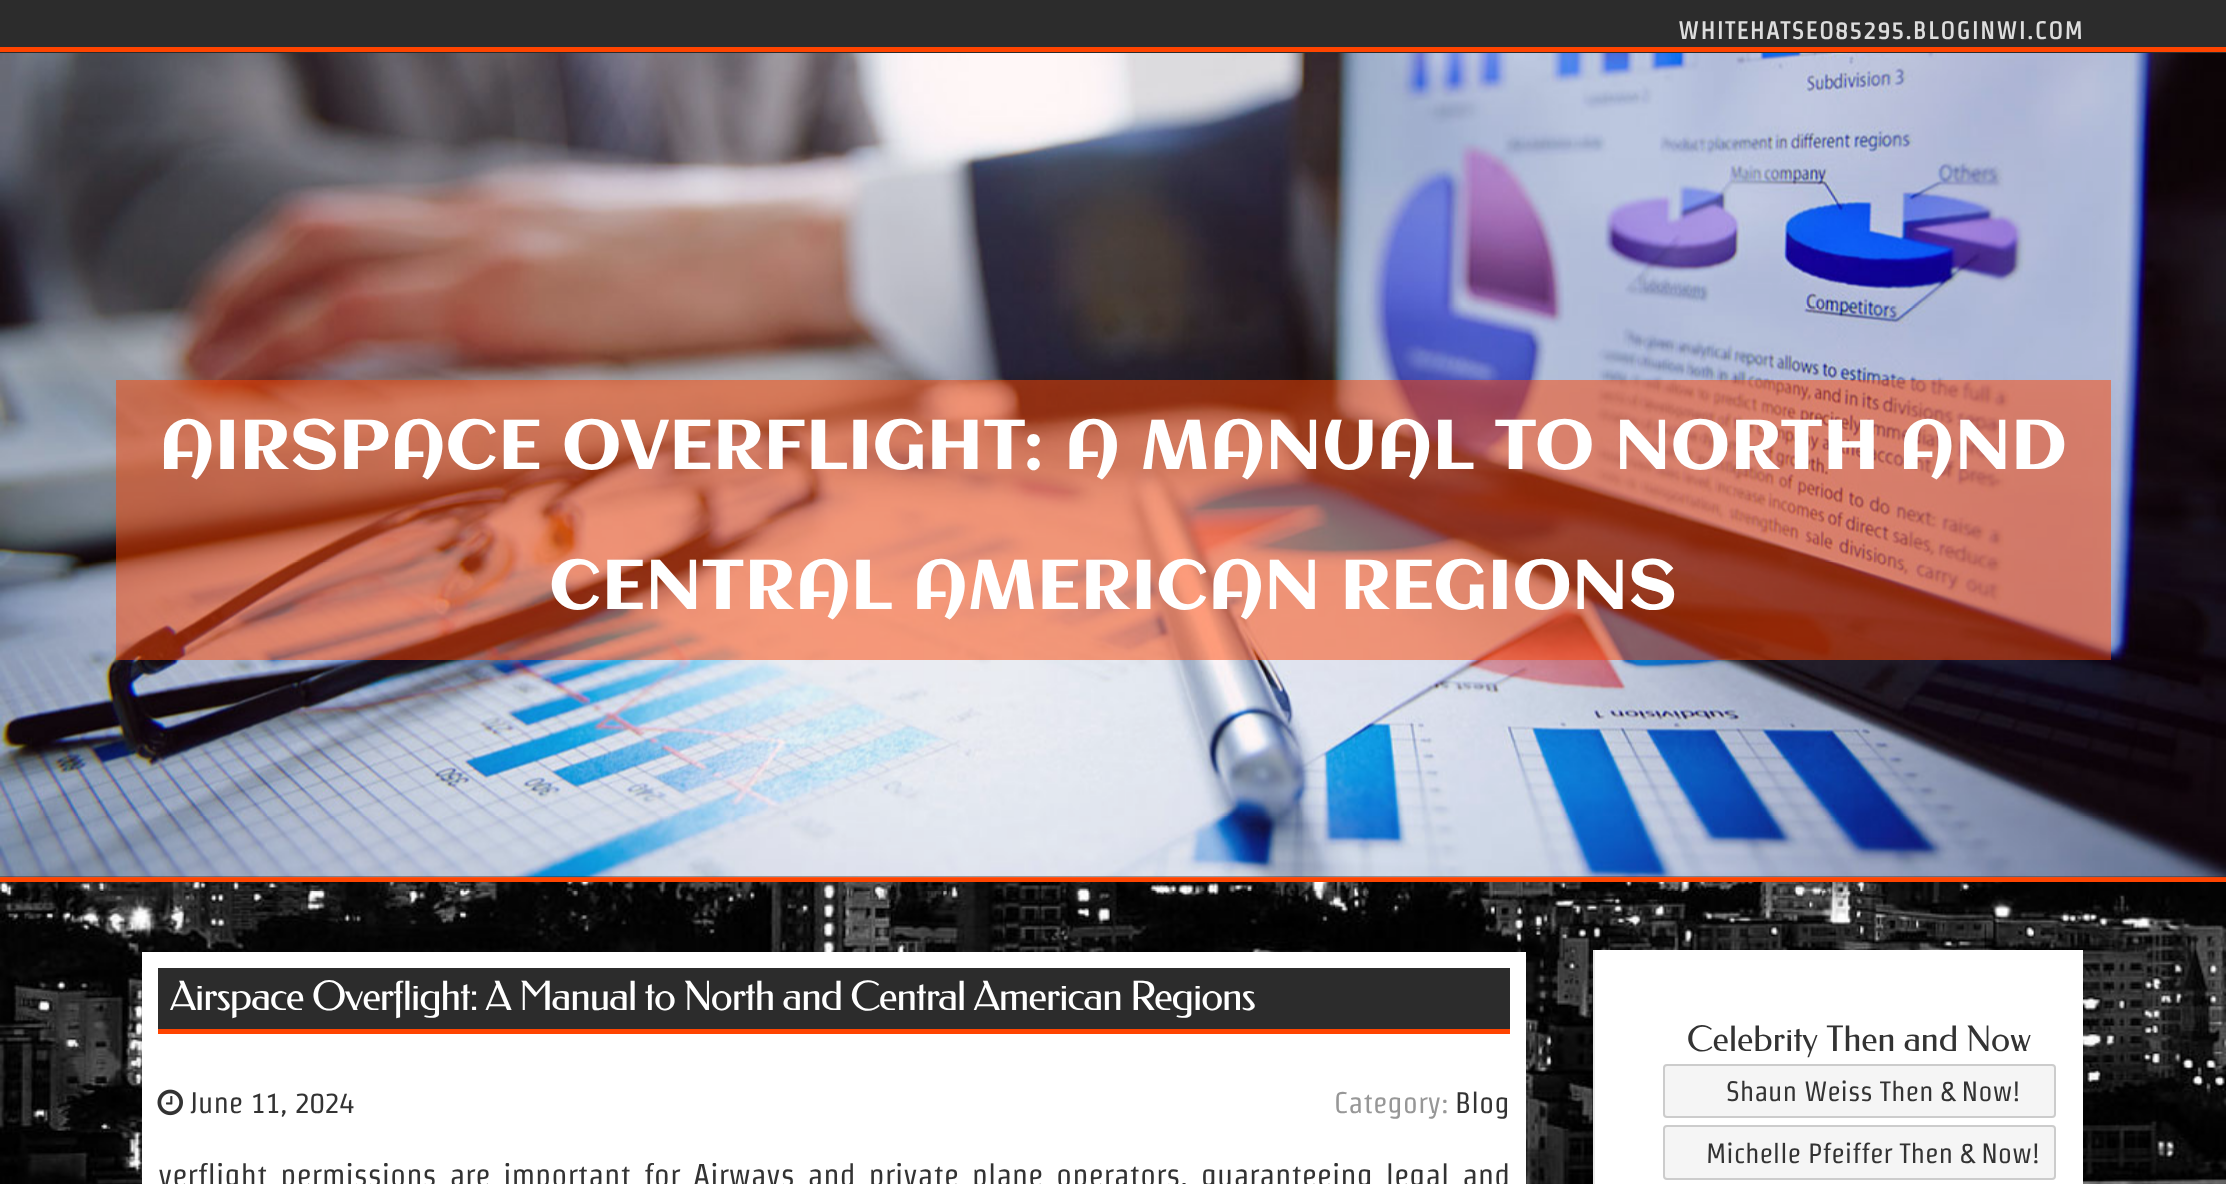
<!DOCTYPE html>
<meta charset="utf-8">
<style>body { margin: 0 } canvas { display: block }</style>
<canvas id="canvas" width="2226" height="1184"></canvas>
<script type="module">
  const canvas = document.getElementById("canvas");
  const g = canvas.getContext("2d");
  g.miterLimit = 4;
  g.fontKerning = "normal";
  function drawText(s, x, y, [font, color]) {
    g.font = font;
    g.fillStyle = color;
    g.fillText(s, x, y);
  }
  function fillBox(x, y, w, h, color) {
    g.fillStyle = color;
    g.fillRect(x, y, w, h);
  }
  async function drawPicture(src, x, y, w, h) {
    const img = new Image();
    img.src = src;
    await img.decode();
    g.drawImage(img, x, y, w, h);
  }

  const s1 = ["bold 24.5px Strait", "#DDDDDD"];
  const s2 = ["70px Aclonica", "#FFFFFF"];
  const s3 = ["40.25px Federo", "#FFFFFF"];
  const s4 = ["29.75px Strait", "#333333"];
  const s5 = ["29.75px Strait", "#979797"];
  const s6 = ["31.5px Strait", "#333333"];
  const s7 = ["35px Federo", "#333333"];
  const s8 = ["28px Strait", "#333333"];

  fillBox(0, 0, 2226, 1184, "#FFFFFF");
  await drawPicture("pic1.png", 0, 882, 2226, 302);
  fillBox(0, 0, 2226, 53, "#2C2C2C");
  fillBox(0, 47, 2226, 5, "#FF4400");
  g.letterSpacing = "1.75px";
  drawText("WHITEHATSEO85295.BLOGINWI.COM", 1678, 39, s1);
  fillBox(0, 877, 2226, 5, "#FF4400");
  fillBox(0, 876, 2226, 1, "#222222");
  await drawPicture("pic2.png", 0, 53, 2226, 825);
  fillBox(0, 53, 2226, 824, "rgba(255, 0, 4, 0.03)");
  fillBox(116, 380, 1995, 280, "rgba(255, 68, 0, 0.5)");
  g.letterSpacing = "0px";
  drawText("AIRSPACE OVERFLIGHT: A MANUAL TO NORTH AND", 159, 469, s2);
  drawText("CENTRAL AMERICAN REGIONS", 549, 609, s2);
  fillBox(142, 952, 1384, 232, "#FFFFFF");
  fillBox(158, 968, 1352, 61, "#2C2C2C");
  fillBox(158, 1029, 1352, 5, "#FF4400");
  g.letterSpacing = "-1.05px";
  drawText("Airspace Overflight: A Manual to North and Central American Regions", 170, 1010, s3);
  await drawPicture("pic3.png", 157, 1089, 26, 27);
  g.letterSpacing = "0px";
  drawText("June 11, 2024", 190, 1113, s4);
  drawText("Category:", 1334, 1113, s5);
  drawText("Blog", 1455, 1113, s4);
  g.wordSpacing = "5px";
  drawText("verflight permissions are important for Airways and private plane operators, guaranteeing legal and", 158, 1186, s6);
  fillBox(1595, 950, 488, 234, "#FFFFFF");
  fillBox(1593, 950, 2, 234, "#E9E9E9");
  g.wordSpacing = "0px";
  drawText("Celebrity Then and Now", 1687, 1051, s7);
  g.fillStyle = "#F5F5F5";
  g.beginPath();
  g.roundRect(1664, 1065, 391, 52, 3);
  g.fill();
  g.strokeStyle = "#CCCCCC";
  g.lineWidth = 2;
  g.stroke();
  drawText("Shaun Weiss Then & Now!", 1726, 1101, s8);
  g.fillStyle = "#F5F5F5";
  g.beginPath();
  g.roundRect(1664, 1126, 391, 53, 3);
  g.fill();
  g.stroke();
  drawText("Michelle Pfeiffer Then & Now!", 1706, 1163, s8);
</script>
